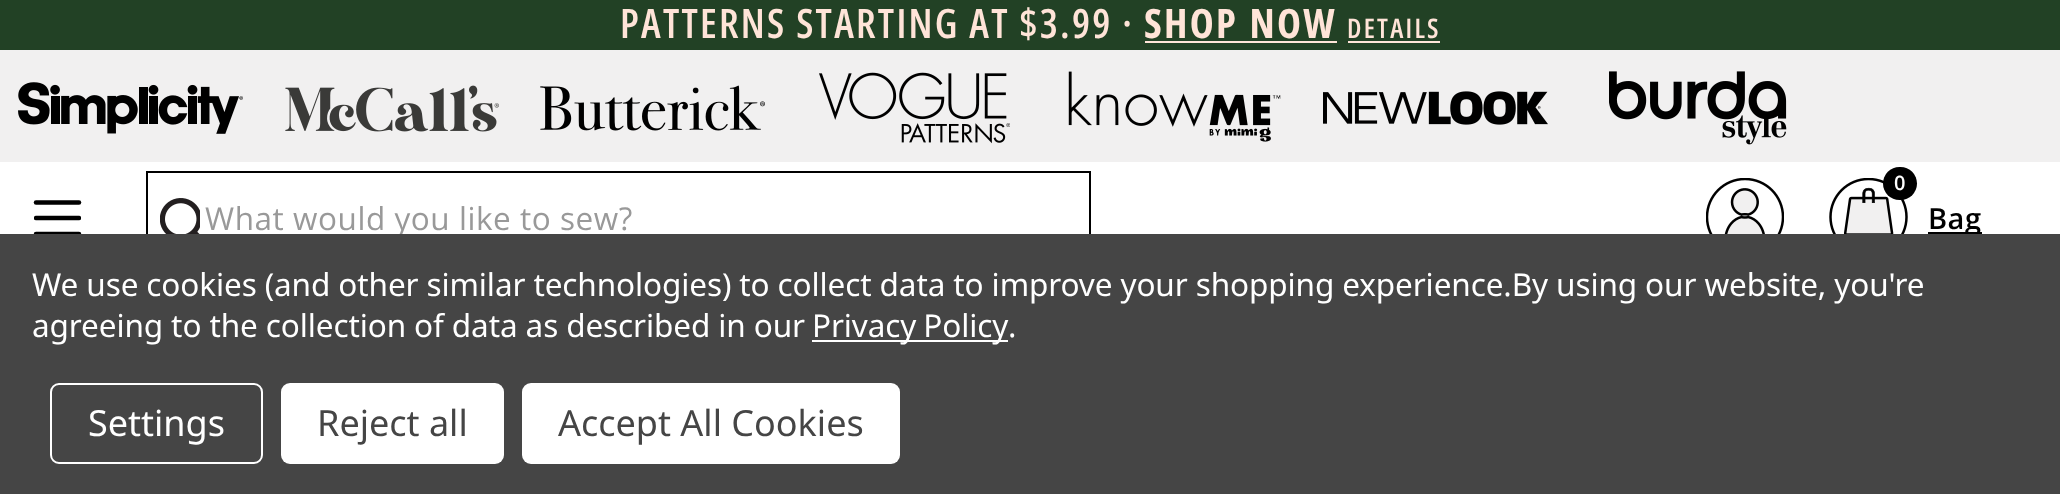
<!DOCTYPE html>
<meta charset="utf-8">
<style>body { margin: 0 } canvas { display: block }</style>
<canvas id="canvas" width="2060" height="494"></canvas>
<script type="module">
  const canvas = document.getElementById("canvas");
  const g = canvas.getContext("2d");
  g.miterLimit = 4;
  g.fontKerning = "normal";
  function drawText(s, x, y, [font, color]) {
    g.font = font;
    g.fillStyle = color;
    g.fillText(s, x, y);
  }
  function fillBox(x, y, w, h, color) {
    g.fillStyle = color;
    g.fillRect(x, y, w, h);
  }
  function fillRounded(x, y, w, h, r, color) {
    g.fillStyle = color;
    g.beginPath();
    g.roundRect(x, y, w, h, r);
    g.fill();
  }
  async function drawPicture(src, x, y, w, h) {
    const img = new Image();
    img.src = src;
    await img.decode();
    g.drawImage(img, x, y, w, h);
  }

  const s1 = ["600 40.5px Open Sans Condensed", "#FFE4D8"];
  const s2 = ["bold 40.5px Open Sans Condensed", "#FFE4D8"];
  const s3 = ["600 27px Open Sans Condensed", "#FFE4D8"];
  const s4 = ["31.5px Open Sans", "#999999"];
  const s5 = ["600 20px Open Sans", "#FFFFFF"];
  const s6 = ["600 29px Open Sans", "#000000"];
  const s7 = ["31.5px Noto Sans", "#FFFFFF"];
  const s8 = ["36px Noto Sans", "#FFFFFF"];
  const s9 = ["36px Noto Sans", "#454545"];

  fillBox(0, 0, 2060, 494, "#F1F0F0");
  fillBox(0, 0, 2060, 50, "#224125");
  g.letterSpacing = "2.25px";
  drawText("PATTERNS STARTING AT $3.99 ·", 620, 38, s1);
  g.wordSpacing = "2px";
  drawText("SHOP NOW", 1144, 38, s2);
  fillBox(1145, 41, 192, 2, "#FFE4D8");
  g.wordSpacing = "0px";
  drawText("DETAILS", 1347, 38, s3);
  fillBox(1348, 41, 92, 2, "#FFE4D8");
  await drawPicture("pic1.png", 18, 82, 225, 52);
  await drawPicture("pic2.png", 285, 85, 214, 47);
  await drawPicture("pic3.png", 540, 85, 225, 46);
  await drawPicture("pic4.png", 819, 72, 191, 72);
  await drawPicture("pic5.png", 1068, 71, 213, 71);
  await drawPicture("pic6.png", 1323, 91, 225, 34);
  await drawPicture("pic7.png", 1609, 71, 178, 74);
  fillBox(0, 162, 2060, 72, "#FFFFFF");
  g.beginPath();
  g.moveTo(36, 202.5);
  g.lineTo(79, 202.5);
  g.strokeStyle = "#000000";
  g.lineWidth = 4.5;
  g.lineCap = "round";
  g.stroke();
  g.save();
  g.beginPath();
  g.rect(34, 200, 47, 36);
  g.clip();
  g.beginPath();
  g.moveTo(36, 218);
  g.lineTo(79, 218);
  g.stroke();
  g.restore();
  g.beginPath();
  g.moveTo(36, 234);
  g.lineTo(79, 234);
  g.stroke();
  await drawPicture("pic8.png", 160, 198, 40, 36);
  fillBox(146, 171, 945, 2, "#000000");
  fillBox(1089, 171, 2, 63, "#000000");
  fillBox(146, 171, 2, 63, "#000000");
  g.letterSpacing = "0.55px";
  drawText("What would you like to sew?", 205, 230, s4);
  await drawPicture("pic9.png", 1706, 178, 78, 56);
  await drawPicture("pic10.png", 1829, 178, 79, 56);
  fillRounded(1883, 167, 34, 33, 16.5, "#000000");
  g.letterSpacing = "0px";
  drawText("0", 1894, 190, s5);
  fillBox(1928, 232, 54, 2, "#000000");
  g.letterSpacing = "0.5px";
  drawText("Bag", 1928, 229, s6);
  fillBox(0, 234, 2060, 260, "#454545");
  g.letterSpacing = "-0.11px";
  drawText("We use cookies (and other similar technologies) to collect data to improve your shopping experience.By using our website, you're", 32, 296, s7);
  drawText("agreeing to the collection of data as described in our", 32, 337, s7);
  fillBox(812, 340, 196, 2, "#FFFFFF");
  g.wordSpacing = "-1px";
  drawText("Privacy Policy", 812, 337, s7);
  g.wordSpacing = "0px";
  drawText(".", 1008, 337, s7);
  g.beginPath();
  g.roundRect(51, 384, 211, 79, 8);
  g.strokeStyle = "#FFFFFF";
  g.lineWidth = 2;
  g.stroke();
  g.letterSpacing = "0px";
  drawText("Settings", 88, 436, s8);
  fillRounded(281, 383, 223, 81, 9, "#FFFFFF");
  drawText("Reject all", 317, 436, s9);
  fillRounded(522, 383, 378, 81, 9, "#FFFFFF");
  drawText("Accept All Cookies", 558, 436, s9);
</script>
